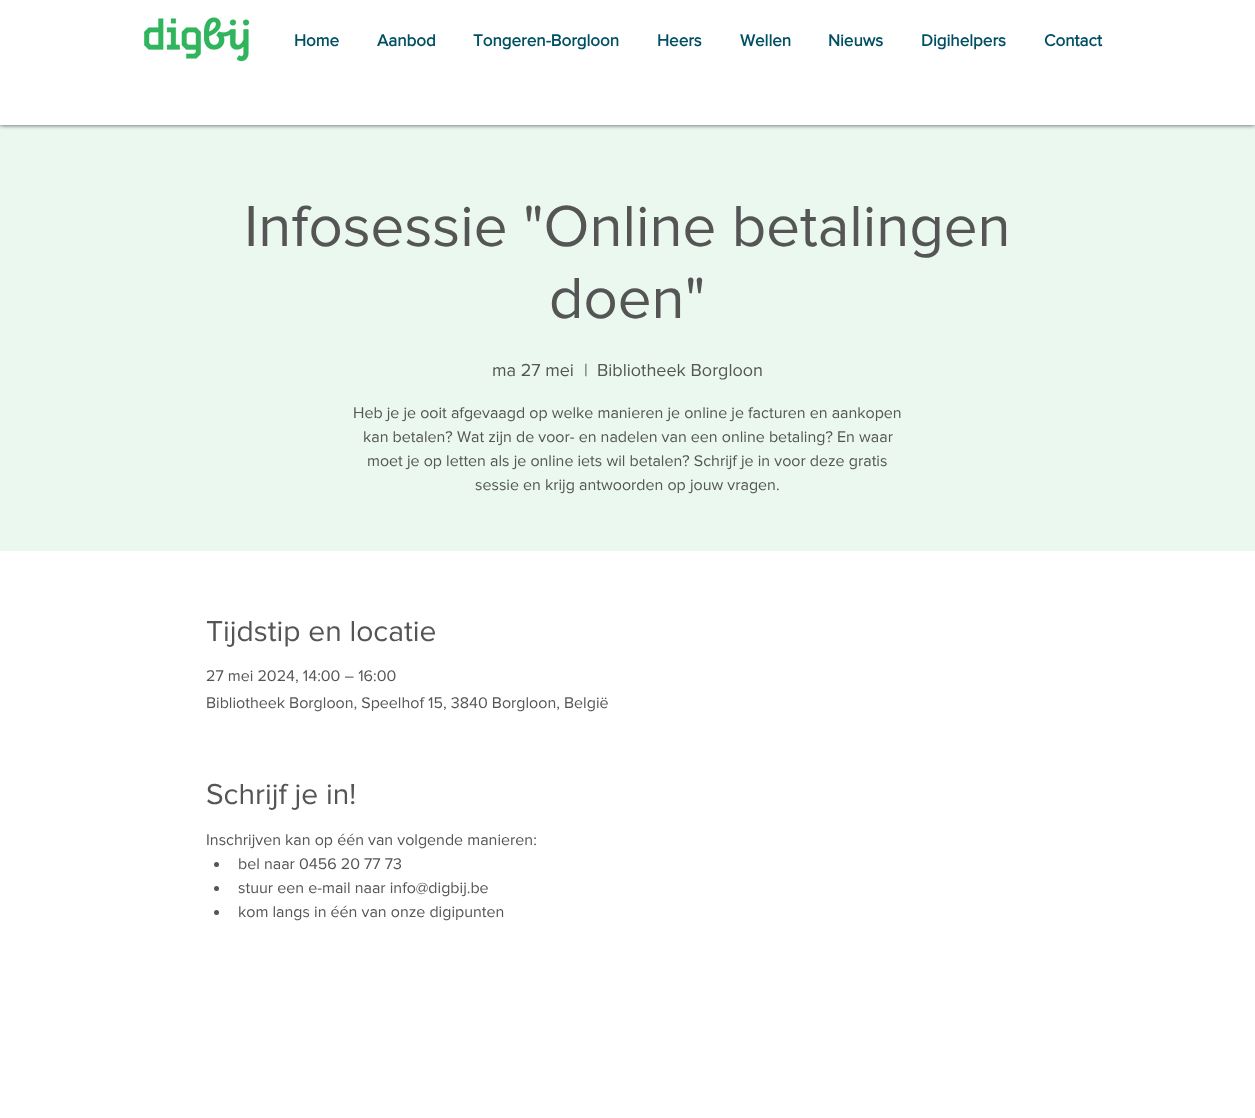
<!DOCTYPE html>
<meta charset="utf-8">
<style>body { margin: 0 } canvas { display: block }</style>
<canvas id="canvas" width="1255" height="1118"></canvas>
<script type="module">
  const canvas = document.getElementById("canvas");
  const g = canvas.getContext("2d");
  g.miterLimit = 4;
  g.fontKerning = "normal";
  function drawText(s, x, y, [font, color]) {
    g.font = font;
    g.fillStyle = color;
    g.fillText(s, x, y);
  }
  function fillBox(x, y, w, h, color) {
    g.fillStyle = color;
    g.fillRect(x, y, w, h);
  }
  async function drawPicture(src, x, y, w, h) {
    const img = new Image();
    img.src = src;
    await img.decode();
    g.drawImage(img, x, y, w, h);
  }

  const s1 = ["bold 17px 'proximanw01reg'", "#005064"];
  const s2 = ["60px 'proximanw01reg'", "#555555"];
  const s3 = ["18px 'proximanw01reg'", "#555555"];
  const s4 = ["16px 'proximanw01reg'", "#555555"];
  const s5 = ["30px 'proximanw01reg'", "#555555"];

  fillBox(0, 0, 1255, 1118, "#FFFFFF");
  fillBox(0, 125, 1255, 426, "#EBF8F0");
  g.save();
  g.beginPath();
  g.rect(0, 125, 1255, 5);
  g.clip();
  g.fillStyle = "rgba(0, 0, 0, 0.7)";
  g.filter = "blur(2.5px)";
  g.beginPath();
  g.rect(0, 0, 1255, 125);
  g.fill();
  g.filter = "none";
  g.restore();
  await drawPicture("pic1.png", 144, 17, 106, 45);
  drawText("Home", 294, 46, s1);
  drawText("Aanbod", 377, 46, s1);
  drawText("Tongeren-Borgloon", 473, 46, s1);
  drawText("Heers", 657, 46, s1);
  drawText("Wellen", 740, 46, s1);
  drawText("Nieuws", 828, 46, s1);
  drawText("Digihelpers", 921, 46, s1);
  drawText("Contact", 1044, 46, s1);
  drawText("Infosessie \"Online betalingen", 244, 246, s2);
  drawText("doen\"", 549, 318, s2);
  drawText("ma 27 mei", 492, 376, s3);
  drawText("|", 584, 376, s3);
  drawText("Bibliotheek Borgloon", 597, 376, s3);
  drawText("Heb je je ooit afgevaagd op welke manieren je online je facturen en aankopen", 353, 418, s4);
  drawText("kan betalen? Wat zijn de voor- en nadelen van een online betaling? En waar", 363, 442, s4);
  drawText("moet je op letten als je online iets wil betalen? Schrijf je in voor deze gratis", 367, 466, s4);
  drawText("sessie en krijg antwoorden op jouw vragen.", 475, 490, s4);
  drawText("Tijdstip en locatie", 206, 641, s5);
  drawText("27 mei 2024, 14:00 – 16:00", 206, 681, s4);
  drawText("Bibliotheek Borgloon, Speelhof 15, 3840 Borgloon, België", 206, 708, s4);
  drawText("Schrijf je in!", 206, 804, s5);
  drawText("Inschrijven kan op één van volgende manieren:", 206, 845, s4);
  g.beginPath();
  g.arc(216.5, 864.5, 2.5, 0, Math.PI * 2);
  g.fill();
  drawText("bel naar 0456 20 77 73", 238, 869, s4);
  g.beginPath();
  g.arc(216.5, 888.5, 2.5, 0, Math.PI * 2);
  g.fill();
  drawText("stuur een e-mail naar info@digbij.be", 238, 893, s4);
  g.beginPath();
  g.arc(216.5, 912.5, 2.5, 0, Math.PI * 2);
  g.fill();
  drawText("kom langs in één van onze digipunten", 238, 917, s4);
</script>
